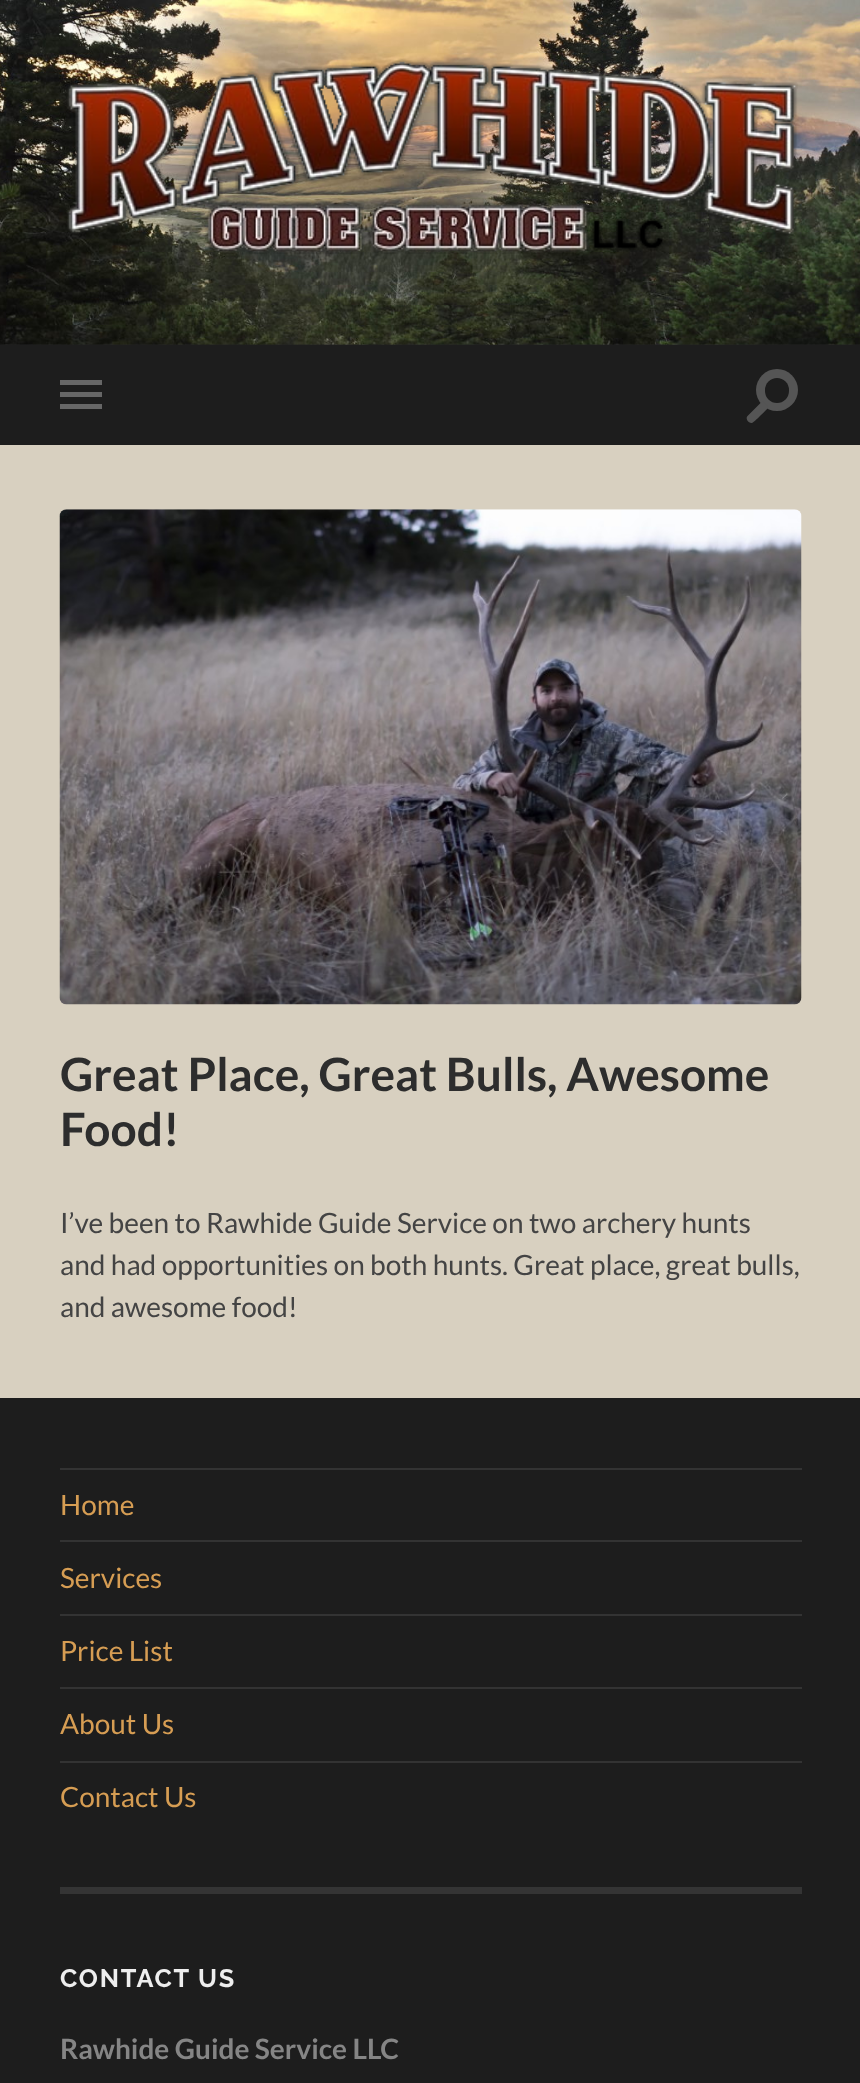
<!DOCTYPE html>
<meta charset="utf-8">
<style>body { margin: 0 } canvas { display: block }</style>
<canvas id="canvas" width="860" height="2083"></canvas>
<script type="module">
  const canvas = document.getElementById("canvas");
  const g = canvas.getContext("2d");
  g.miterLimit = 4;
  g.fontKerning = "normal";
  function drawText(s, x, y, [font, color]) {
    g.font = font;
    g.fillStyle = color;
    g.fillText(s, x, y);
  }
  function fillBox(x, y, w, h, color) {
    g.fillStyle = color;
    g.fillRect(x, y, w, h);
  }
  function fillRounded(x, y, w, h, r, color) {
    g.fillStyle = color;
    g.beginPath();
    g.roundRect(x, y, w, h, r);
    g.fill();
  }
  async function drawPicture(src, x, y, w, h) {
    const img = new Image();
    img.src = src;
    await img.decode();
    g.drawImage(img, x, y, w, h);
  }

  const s1 = ["bold 46px Lato", "#2D2D2D"];
  const s2 = ["28px Lato", "#444444"];
  const s3 = ["28px Lato", "#D69D53"];
  const s4 = ["100 25.25px Raleway", "#EEEEEE"];
  const s5 = ["bold 28px Lato", "#858585"];

  fillBox(0, 0, 860, 2083, "#D8D0C0");
  fillBox(0, 344, 860, 1, "#262626");
  await drawPicture("pic1.png", 0, 0, 860, 345);
  await drawPicture("pic2.png", 67, 58, 731, 196);
  fillBox(0, 345, 860, 100, "#1D1D1D");
  fillBox(60, 380, 42, 5, "#666666");
  fillBox(60, 392, 42, 5, "#666666");
  fillBox(60, 404, 42, 5, "#666666");
  g.fillStyle = "#555555";
  g.beginPath();
  g.arc(777, 390, 21, 0, Math.PI * 2);
  g.fill();
  fillRounded(765, 378, 24, 25, 12, "#1D1D1D");
  g.fillStyle = "#555555";
  g.beginPath();
  g.moveTo(747.5, 416);
  g.lineTo(762.5, 401);
  g.lineTo(768.5, 407.5);
  g.bezierCurveTo(766.5, 409.5, 754, 422.5, 752, 423);
  g.bezierCurveTo(748.5, 423.5, 745, 418.5, 747.5, 416);
  g.closePath();
  g.fill();
  await drawPicture("pic3.png", 59, 509, 743, 496);
  drawText("Great Place, Great Bulls, Awesome", 60, 1091, s1);
  drawText("Food!", 60, 1146, s1);
  drawText("I’ve been to Rawhide Guide Service on two archery hunts", 60, 1233, s2);
  drawText("and had opportunities on both hunts. Great place, great bulls,", 60, 1275, s2);
  drawText("and awesome food!", 60, 1317, s2);
  fillBox(0, 1398, 860, 685, "#1D1D1D");
  fillBox(60, 1468, 742, 2, "#333333");
  drawText("Home", 60, 1515, s3);
  fillBox(60, 1540, 742, 2, "#333333");
  drawText("Services", 60, 1588, s3);
  fillBox(60, 1614, 742, 2, "#333333");
  drawText("Price List", 60, 1661, s3);
  fillBox(60, 1687, 742, 2, "#333333");
  drawText("About Us", 60, 1734, s3);
  fillBox(60, 1761, 742, 2, "#333333");
  drawText("Contact Us", 60, 1807, s3);
  fillBox(60, 1887, 742, 7, "#343434");
  g.letterSpacing = "1.75px";
  drawText("CONTACT US", 60, 1987, s4);
  g.letterSpacing = "0px";
  drawText("Rawhide Guide Service LLC", 60, 2059, s5);
</script>
